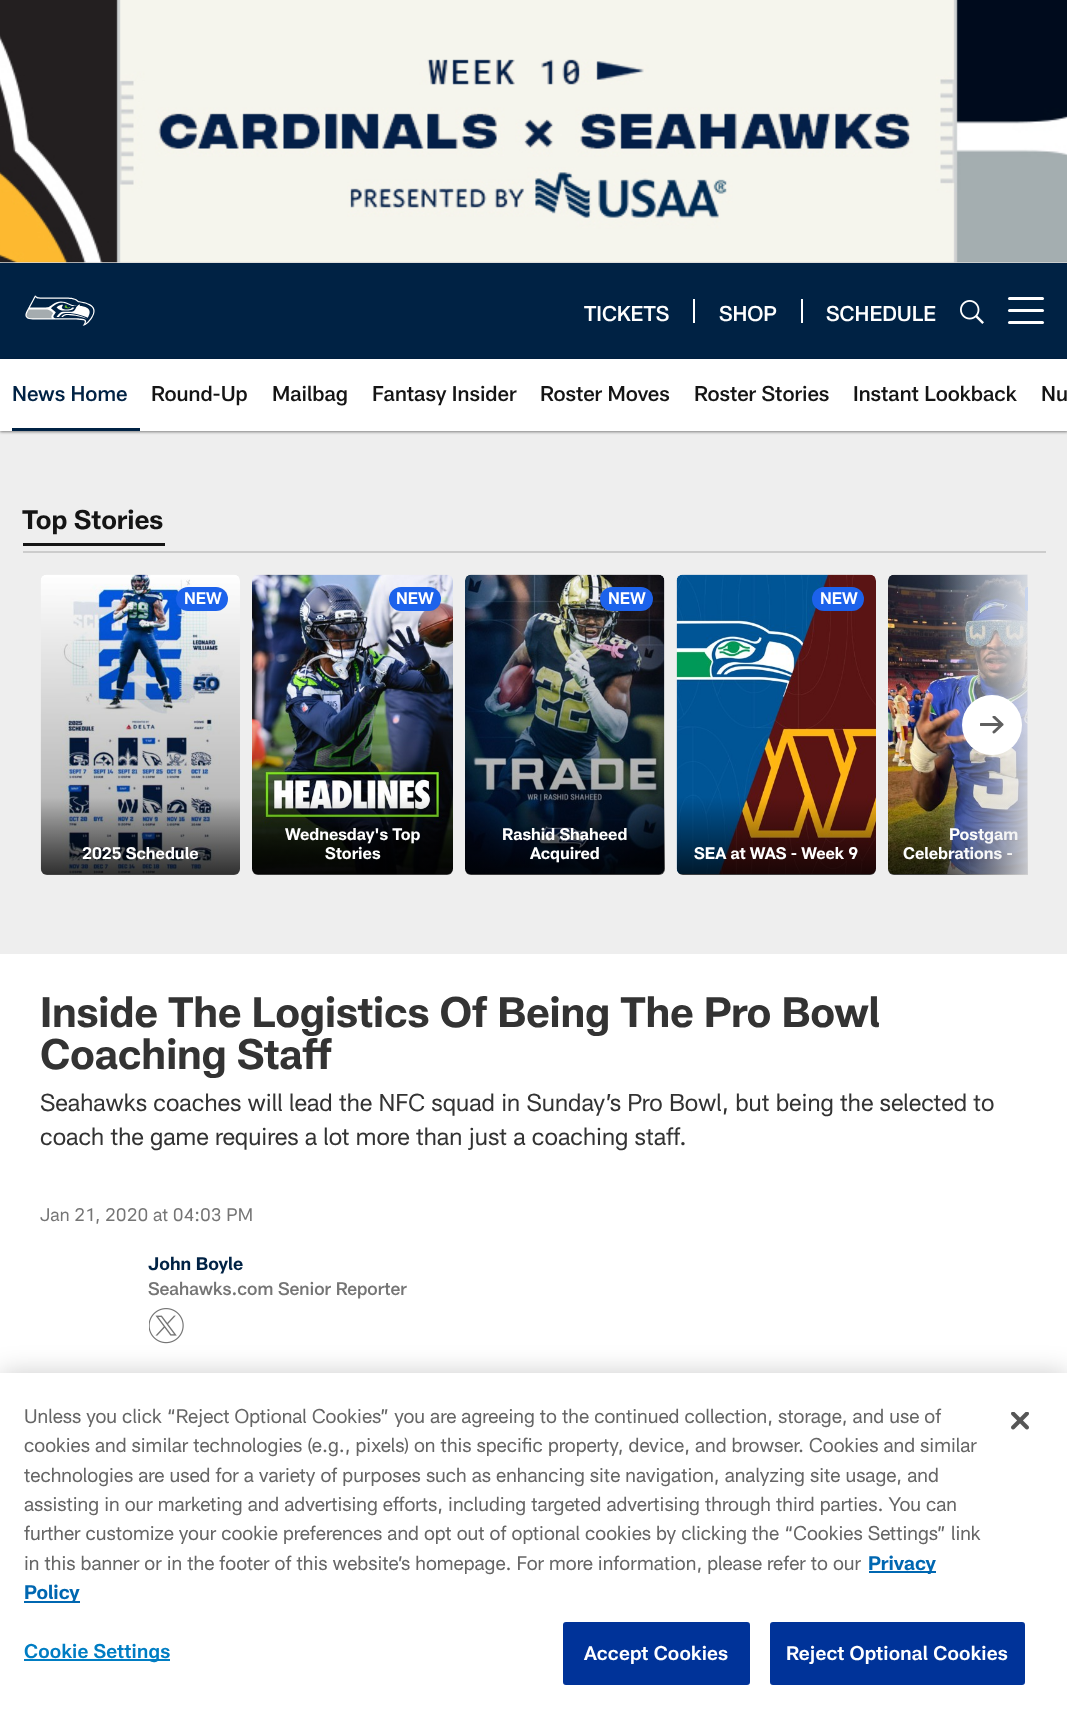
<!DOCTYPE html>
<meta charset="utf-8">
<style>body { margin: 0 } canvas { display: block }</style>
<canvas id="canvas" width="1067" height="1713"></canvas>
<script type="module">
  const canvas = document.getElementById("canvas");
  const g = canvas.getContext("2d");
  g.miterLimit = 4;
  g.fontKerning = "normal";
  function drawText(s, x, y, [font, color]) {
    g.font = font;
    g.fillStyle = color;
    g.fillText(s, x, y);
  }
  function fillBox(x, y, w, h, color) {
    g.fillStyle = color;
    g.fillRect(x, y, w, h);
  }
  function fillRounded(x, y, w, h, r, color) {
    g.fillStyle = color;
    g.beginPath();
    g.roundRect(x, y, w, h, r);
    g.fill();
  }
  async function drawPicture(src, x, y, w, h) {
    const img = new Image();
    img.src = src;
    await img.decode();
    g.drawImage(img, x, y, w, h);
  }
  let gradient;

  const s1 = ["500 21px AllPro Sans", "#FFFFFF"];
  const s2 = ["500 21px AllPro Sans", "#002244"];
  const s3 = ["500 21px AllPro Sans", "#151515"];
  const s4 = ["bold 26.5px AllPro Sans", "#151515"];
  const s5 = ["bold 16.5px AllPro Sans", "#FFFFFF"];
  const s6 = ["600 16.5px AllPro Sans", "#FFFFFF"];
  const s7 = ["bold 42px AllPro Sans", "#333333"];
  const s8 = ["24px AllPro Sans", "#333333"];
  const s9 = ["18px AllPro Sans", "#757575"];
  const s10 = ["bold 18px AllPro Sans", "#002244"];
  const s11 = ["500 18px AllPro Sans", "#757575"];
  const s12 = ["19.5px AllPro Sans", "#666666"];
  const s13 = ["bold 19.5px AllPro Sans", "#0067B1"];
  const s14 = ["600 19.5px AllPro Sans", "#007DC3"];
  const s15 = ["600 19.5px AllPro Sans", "#FFFFFF"];

  fillBox(0, 0, 1067, 1713, "#EEEEEE");
  await drawPicture("pic1.png", 0, 0, 1067, 263);
  g.fillStyle = "rgba(0, 0, 0, 0.47)";
  g.filter = "blur(1.5px)";
  g.beginPath();
  g.rect(0, 264, 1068, 96);
  g.fill();
  g.filter = "none";
  fillBox(0, 263, 1067, 96, "#002244");
  await drawPicture("pic2.png", 25, 295, 70, 31);
  drawText("TICKETS", 584, 321, s1);
  fillBox(693, 299, 2, 24, "#FFFFFF");
  drawText("SHOP", 719, 321, s1);
  fillBox(801, 299, 2, 24, "#FFFFFF");
  drawText("SCHEDULE", 826, 321, s1);
  await drawPicture("pic3.png", 960, 300, 24, 24);
  fillRounded(1008, 309, 36, 3, 1.5, "#FFFFFF");
  fillRounded(1008, 297, 36, 3, 1.5, "#FFFFFF");
  fillRounded(1008, 321, 36, 3, 1.5, "#FFFFFF");
  g.fillStyle = "rgba(0, 0, 0, 0.47)";
  g.filter = "blur(1.5px)";
  g.beginPath();
  g.rect(0, 360, 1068, 72);
  g.fill();
  g.filter = "none";
  fillBox(0, 359, 1067, 72, "#FFFFFF");
  fillBox(12, 428, 128, 3, "#002244");
  drawText("News Home", 12, 401, s2);
  drawText("Round-Up", 151, 401, s3);
  drawText("Mailbag", 272, 401, s3);
  drawText("Fantasy Insider", 372, 401, s3);
  drawText("Roster Moves", 540, 401, s3);
  drawText("Roster Stories", 694, 401, s3);
  drawText("Instant Lookback", 853, 401, s3);
  drawText("Nu", 1041, 401, s3);
  fillBox(23, 551, 1023, 2, "#CCCCCC");
  fillBox(23, 543, 142, 3, "#151515");
  drawText("Top Stories", 22, 529, s4);
  await drawPicture("pic8.png", 888, 574, 140, 301);
  g.fillStyle = "#1C62EB";
  g.beginPath();
  g.roundRect(1025, 587, 3, 24, [12, 0, 0, 12]);
  g.fill();
  gradient = g.createLinearGradient(989, 797, 989, 876);
  gradient.addColorStop(0, "rgba(0, 0, 0, 0)");
  gradient.addColorStop(1, "rgba(0, 0, 0, 0.72)");
  g.fillStyle = gradient;
  g.beginPath();
  g.roundRect(888, 797, 140, 78, [0, 0, 0, 6]);
  g.fill();
  drawText("Postgam", 949, 840, s5);
  drawText("Celebrations -", 903, 859, s5);
  gradient = g.createLinearGradient(1046, 725, 938, 725);
  gradient.addColorStop(0, "#EEEEEE");
  gradient.addColorStop(1, "rgba(238, 238, 238, 0)");
  g.fillStyle = gradient;
  g.fillRect(940, 575, 89, 300);
  g.fillStyle = "#FFFFFF";
  g.beginPath();
  g.arc(992, 725, 30, 0, Math.PI * 2);
  g.fill();
  g.save();
  g.beginPath();
  g.rect(980, 716, 24, 18);
  g.clip();
  g.beginPath();
  g.moveTo(994, 717);
  g.lineTo(1002, 724.5);
  g.moveTo(1002, 724.5);
  g.lineTo(994, 732);
  g.moveTo(1002, 724.5);
  g.lineTo(981, 724.5);
  g.strokeStyle = "#5F5F5F";
  g.lineWidth = 3;
  g.lineCap = "round";
  g.lineJoin = "round";
  g.stroke();
  g.restore();
  await drawPicture("pic4.png", 40, 574, 200, 301);
  fillRounded(176, 587, 52, 24, 12, "#1C62EB");
  drawText("NEW", 184, 604, s6);
  gradient = g.createLinearGradient(140, 797, 140, 876);
  gradient.addColorStop(0, "rgba(0, 0, 0, 0)");
  gradient.addColorStop(1, "rgba(0, 0, 0, 0.72)");
  g.fillStyle = gradient;
  g.beginPath();
  g.roundRect(41, 797, 199, 78, [0, 0, 6, 6]);
  g.fill();
  drawText("2025 Schedule", 82, 859, s5);
  await drawPicture("pic5.png", 252, 574, 201, 301);
  fillRounded(389, 587, 52, 24, 12, "#1C62EB");
  drawText("NEW", 396, 604, s6);
  gradient = g.createLinearGradient(353, 797, 353, 876);
  gradient.addColorStop(0, "rgba(0, 0, 0, 0)");
  gradient.addColorStop(1, "rgba(0, 0, 0, 0.72)");
  g.fillStyle = gradient;
  g.beginPath();
  g.roundRect(252, 797, 201, 78, [0, 0, 6, 6]);
  g.fill();
  drawText("Wednesday's Top", 285, 840, s5);
  drawText("Stories", 325, 859, s5);
  await drawPicture("pic6.png", 465, 574, 200, 301);
  fillRounded(600, 587, 53, 24, 12, "#1C62EB");
  drawText("NEW", 608, 604, s6);
  gradient = g.createLinearGradient(565, 797, 565, 876);
  gradient.addColorStop(0, "rgba(0, 0, 0, 0)");
  gradient.addColorStop(1, "rgba(0, 0, 0, 0.72)");
  g.fillStyle = gradient;
  g.beginPath();
  g.roundRect(465, 797, 200, 78, [0, 0, 6, 6]);
  g.fill();
  drawText("Rashid Shaheed", 502, 840, s5);
  drawText("Acquired", 530, 859, s5);
  await drawPicture("pic7.png", 676, 574, 200, 301);
  fillRounded(812, 587, 52, 24, 12, "#1C62EB");
  drawText("NEW", 820, 604, s6);
  gradient = g.createLinearGradient(776, 797, 776, 876);
  gradient.addColorStop(0, "rgba(0, 0, 0, 0)");
  gradient.addColorStop(1, "rgba(0, 0, 0, 0.72)");
  g.fillStyle = gradient;
  g.beginPath();
  g.roundRect(677, 797, 199, 78, [0, 0, 6, 6]);
  g.fill();
  drawText("SEA at WAS - Week 9", 694, 859, s5);
  fillBox(0, 954, 1067, 419, "#FFFFFF");
  g.letterSpacing = "-0.3px";
  drawText("Inside The Logistics Of Being The Pro Bowl", 40, 1027, s7);
  drawText("Coaching Staff", 40, 1069, s7);
  g.letterSpacing = "0px";
  drawText("Seahawks coaches will lead the NFC squad in Sunday’s Pro Bowl, but being the selected to", 40, 1111, s8);
  drawText("coach the game requires a lot more than just a coaching staff.", 40, 1145, s8);
  drawText("Jan 21, 2020 at 04:03 PM", 40, 1221, s9);
  drawText("John Boyle", 148, 1270, s10);
  drawText("Seahawks.com Senior Reporter", 148, 1295, s11);
  await drawPicture("pic9.png", 149, 1308, 35, 36);
  g.fillStyle = "rgba(0, 0, 0, 0.2)";
  g.filter = "blur(13.5px)";
  g.beginPath();
  g.rect(0, 1373, 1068, 340);
  g.fill();
  g.filter = "none";
  fillBox(0, 1373, 1067, 340, "#FFFFFF");
  drawText("Unless you click “Reject Optional Cookies” you are agreeing to the continued collection, storage, and use of", 24, 1423, s12);
  drawText("cookies and similar technologies (e.g., pixels) on this specific property, device, and browser. Cookies and similar", 24, 1452, s12);
  drawText("technologies are used for a variety of purposes such as enhancing site navigation, analyzing site usage, and", 24, 1482, s12);
  drawText("assisting in our marketing and advertising efforts, including targeted advertising through third parties. You can", 24, 1511, s12);
  drawText("further customize your cookie preferences and opt out of optional cookies by clicking the “Cookies Settings” link", 24, 1540, s12);
  drawText("in this banner or in the footer of this website’s homepage. For more information, please refer to our", 24, 1570, s12);
  fillBox(869, 1571, 67, 2, "#0067B1");
  drawText("Privacy", 868, 1570, s13);
  fillBox(24, 1601, 56, 2, "#0067B1");
  drawText("Policy", 24, 1599, s13);
  fillBox(24, 1659, 146, 2, "#007DC3");
  g.letterSpacing = "0.2px";
  drawText("Cookie Settings", 24, 1658, s14);
  g.fillStyle = "#003399";
  g.beginPath();
  g.roundRect(564, 1623, 185, 61, 2);
  g.fill();
  g.strokeStyle = "#003399";
  g.lineWidth = 2;
  g.stroke();
  drawText("Accept Cookies", 584, 1660, s15);
  g.fillStyle = "#003399";
  g.beginPath();
  g.roundRect(771, 1623, 253, 61, 2);
  g.fill();
  g.stroke();
  drawText("Reject Optional Cookies", 786, 1660, s15);
  await drawPicture("pic10.png", 1011, 1412, 18, 18);
</script>
